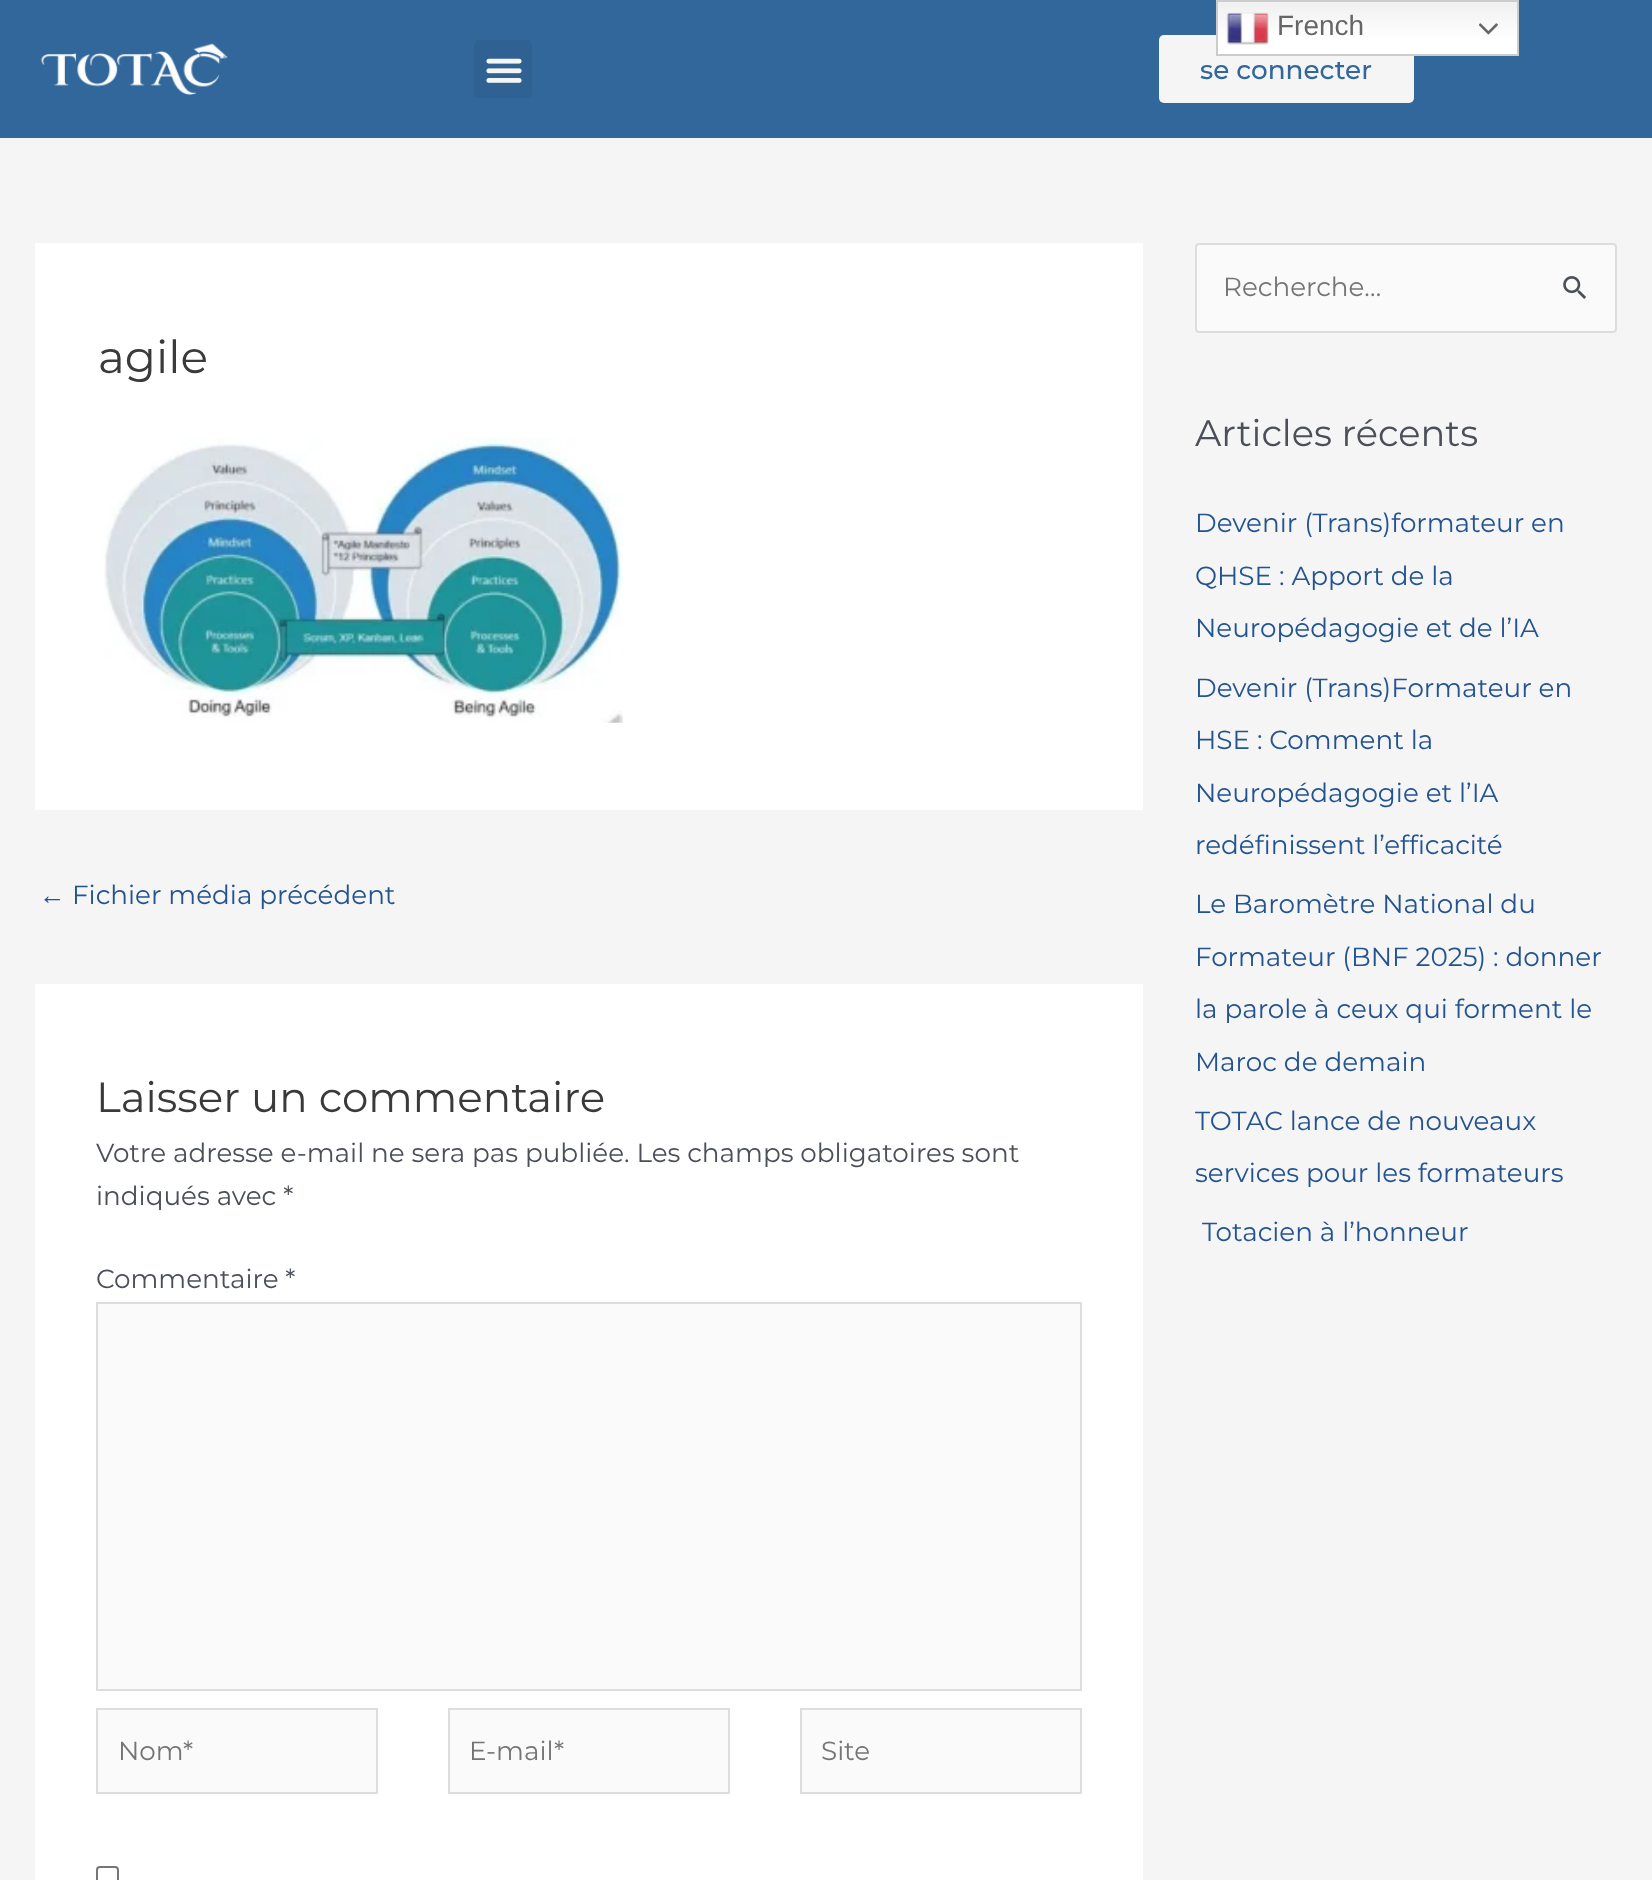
<!DOCTYPE html>
<meta charset="utf-8">
<style>body { margin: 0 } canvas { display: block }</style>
<canvas id="canvas" width="1652" height="1880"></canvas>
<script type="module">
  const canvas = document.getElementById("canvas");
  const g = canvas.getContext("2d");
  g.miterLimit = 4;
  g.fontKerning = "normal";
  function drawText(s, x, y, [font, color]) {
    g.font = font;
    g.fillStyle = color;
    g.fillText(s, x, y);
  }
  function fillBox(x, y, w, h, color) {
    g.fillStyle = color;
    g.fillRect(x, y, w, h);
  }
  function fillRounded(x, y, w, h, r, color) {
    g.fillStyle = color;
    g.beginPath();
    g.roundRect(x, y, w, h, r);
    g.fill();
  }
  async function drawPicture(src, x, y, w, h) {
    const img = new Image();
    img.src = src;
    await img.decode();
    g.drawImage(img, x, y, w, h);
  }
  let gradient;

  const s1 = ["28px Liberation Sans", "#666666"];
  const s2 = ["500 26.25px Montserrat", "#31679A"];
  const s3 = ["45.5px Montserrat", "#3A3A3A"];
  const s4 = ["26.25px Liberation Sans", "#245490"];
  const s5 = ["26.25px Montserrat", "#245490"];
  const s6 = ["42px Montserrat", "#3A3A3A"];
  const s7 = ["26.25px Montserrat", "#4B4F58"];
  const s8 = ["26.25px Montserrat", "#757575"];
  const s9 = ["36.75px Montserrat", "#4B4F58"];

  fillBox(0, 0, 1652, 1880, "#F5F5F5");
  fillBox(0, 0, 1652, 138, "#31679A");
  fillRounded(1159, 35, 255, 68, 5, "#F5F5F5");
  gradient = g.createLinearGradient(1368, 0, 1368, 56);
  gradient.addColorStop(0, "#EFEFEF");
  gradient.addColorStop(0.7, "#FFFFFF");
  g.fillStyle = gradient;
  g.fillRect(1218, 2, 299, 52);
  g.strokeStyle = "#CCCCCC";
  g.lineWidth = 2;
  g.strokeRect(1217, 1, 301, 54);
  await drawPicture("pic1.png", 1226, 12, 43, 33);
  drawText("French", 1277, 35, s1);
  await drawPicture("pic2.png", 1479, 23, 19, 12);
  await drawPicture("pic3.png", 40, 43, 188, 53);
  fillRounded(474, 40, 58, 58, 5, "#2F6292");
  await drawPicture("pic4.png", 486, 58, 36, 25);
  drawText("se connecter", 1200, 79, s2);
  fillBox(35, 243, 1108, 567, "#FFFFFF");
  drawText("agile", 98, 373, s3);
  await drawPicture("pic5.png", 104, 437, 519, 286);
  drawText("←", 39, 904, s4);
  drawText("Fichier média précédent", 72, 904, s5);
  fillBox(35, 984, 1108, 896, "#FFFFFF");
  drawText("Laisser un commentaire", 96, 1112, s6);
  drawText("Votre adresse e-mail ne sera pas publiée. Les champs obligatoires sont", 96, 1162, s7);
  drawText("indiqués avec *", 96, 1205, s7);
  drawText("Commentaire *", 96, 1288, s7);
  g.fillStyle = "#FAFAFA";
  g.beginPath();
  g.rect(97, 1303, 984, 387);
  g.fill();
  g.strokeStyle = "#DDDDDD";
  g.stroke();
  g.beginPath();
  g.rect(97, 1709, 280, 84);
  g.fill();
  g.stroke();
  drawText("Nom*", 118, 1760, s8);
  g.fillStyle = "#FAFAFA";
  g.beginPath();
  g.rect(449, 1709, 280, 84);
  g.fill();
  g.stroke();
  drawText("E-mail*", 469, 1760, s8);
  g.fillStyle = "#FAFAFA";
  g.beginPath();
  g.rect(801, 1709, 280, 84);
  g.fill();
  g.stroke();
  drawText("Site", 821, 1760, s8);
  g.beginPath();
  g.roundRect(97, 1867, 21, 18, 3);
  g.strokeStyle = "#767676";
  g.stroke();
  g.fillStyle = "#FAFAFA";
  g.beginPath();
  g.roundRect(1196, 244, 420, 88, 3);
  g.fill();
  g.strokeStyle = "#DDDDDD";
  g.stroke();
  drawText("Recherche…", 1223, 296, s8);
  await drawPicture("pic6.png", 1563, 276, 23, 23);
  drawText("Articles récents", 1195, 446, s9);
  drawText("Devenir (Trans)formateur en", 1195, 532, s5);
  drawText("QHSE : Apport de la", 1195, 585, s5);
  drawText("Neuropédagogie et de l’IA", 1195, 637, s5);
  drawText("Devenir (Trans)Formateur en", 1195, 697, s5);
  drawText("HSE : Comment la", 1195, 749, s5);
  drawText("Neuropédagogie et l’IA", 1195, 802, s5);
  drawText("redéfinissent l’efficacité", 1195, 854, s5);
  drawText("Le Baromètre National du", 1195, 913, s5);
  drawText("Formateur (BNF 2025) : donner", 1195, 966, s5);
  drawText("la parole à ceux qui forment le", 1195, 1018, s5);
  drawText("Maroc de demain", 1195, 1071, s5);
  drawText("TOTAC lance de nouveaux", 1195, 1130, s5);
  drawText("services pour les formateurs", 1195, 1182, s5);
  drawText("Totacien à l’honneur", 1202, 1241, s5);
</script>
